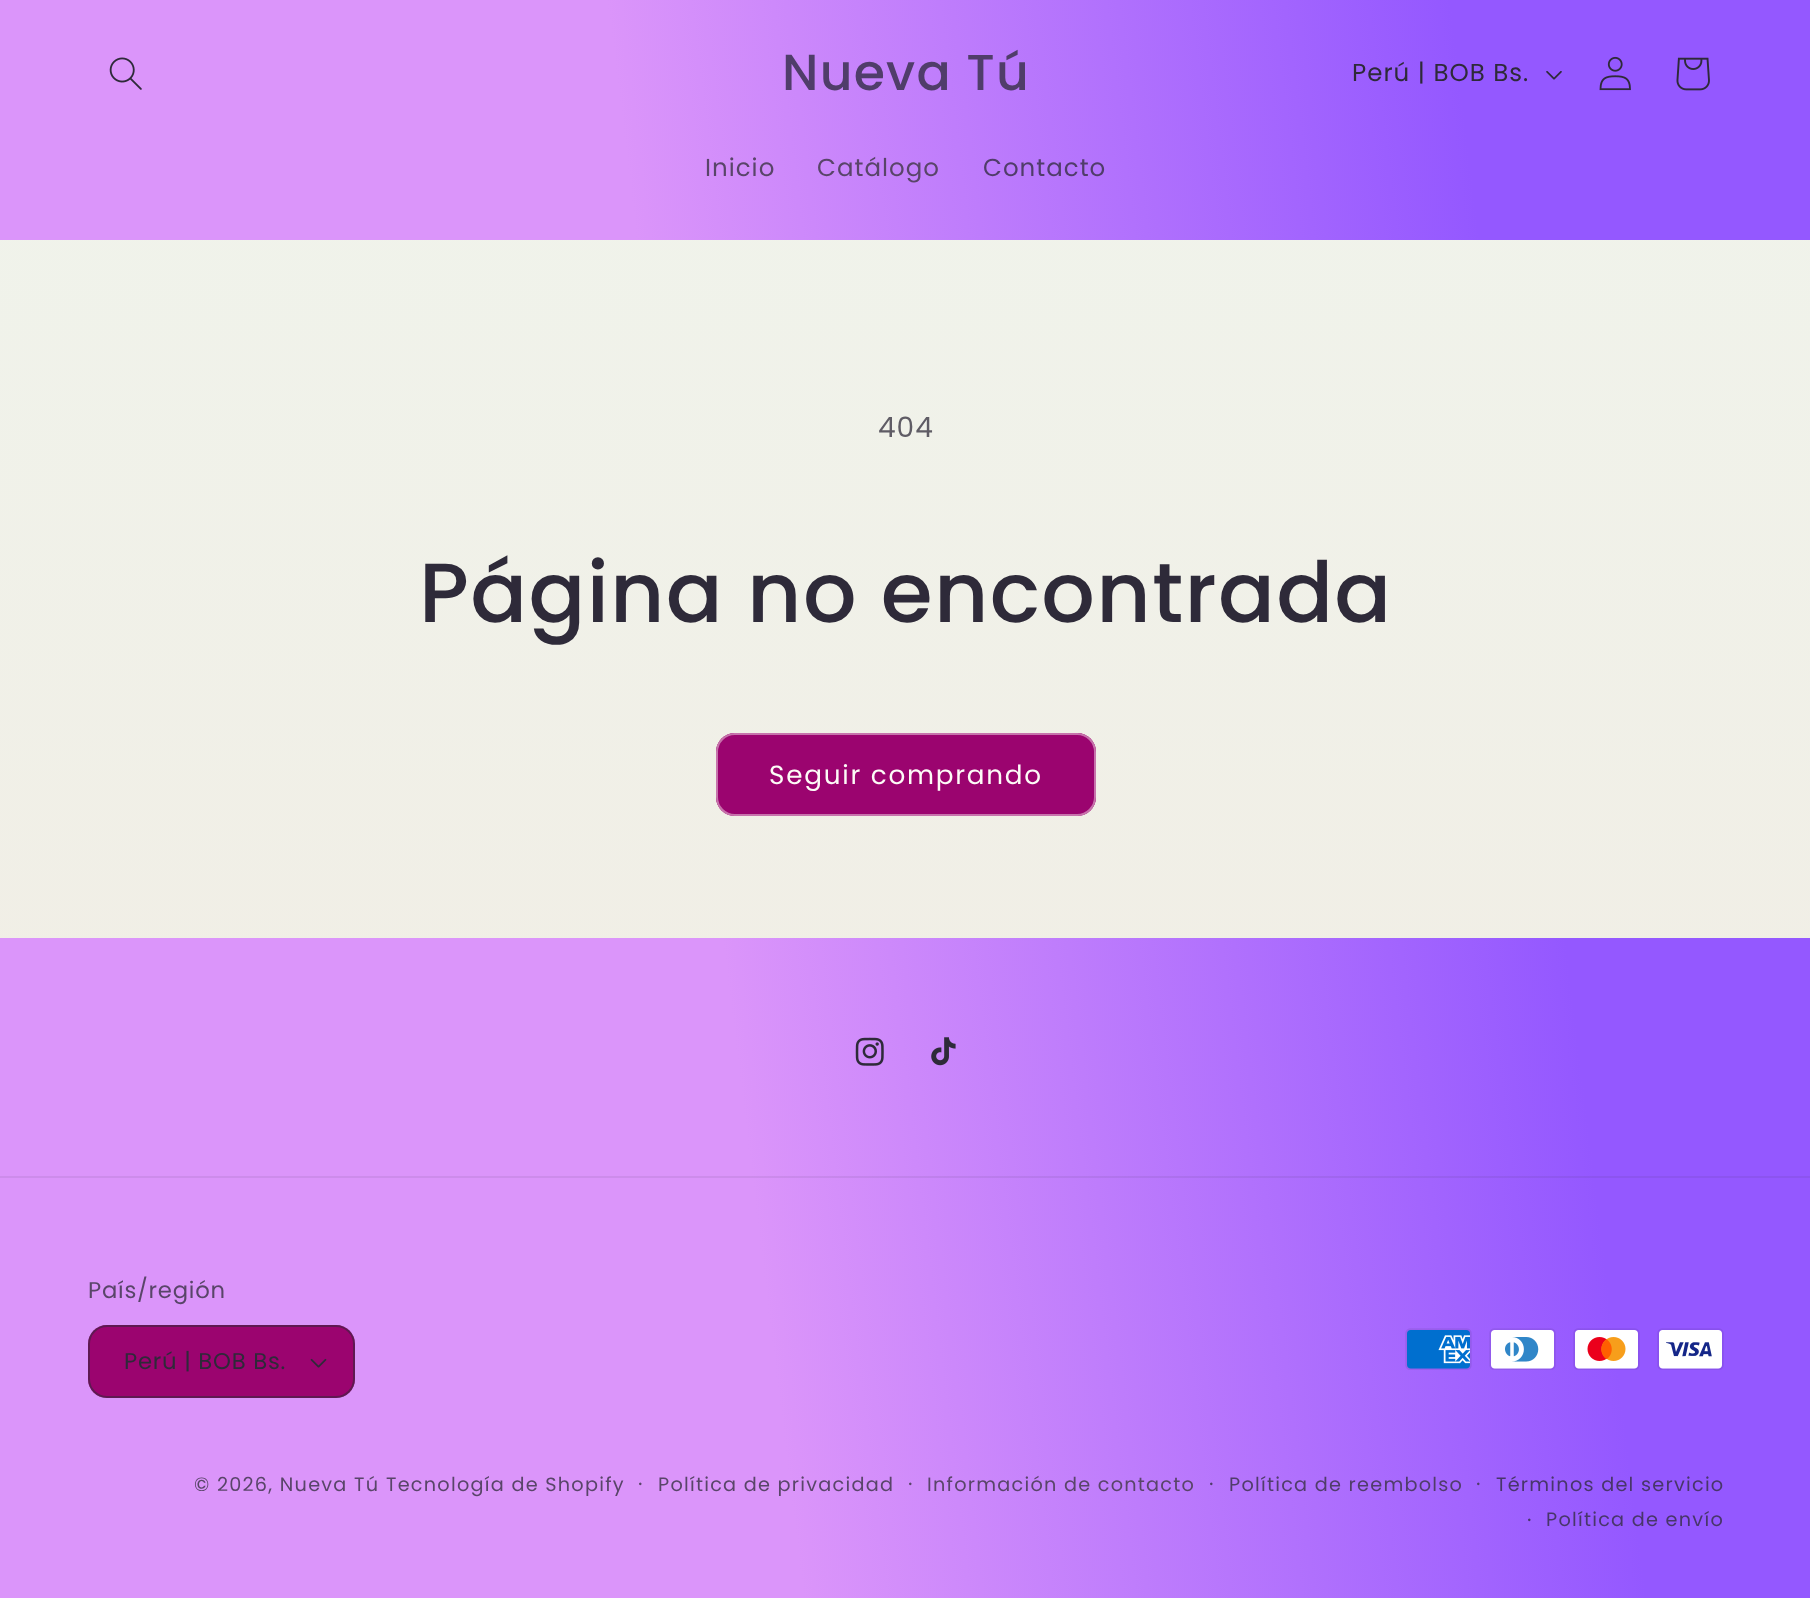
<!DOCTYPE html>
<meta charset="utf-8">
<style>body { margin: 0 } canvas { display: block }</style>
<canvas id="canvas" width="1810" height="1598"></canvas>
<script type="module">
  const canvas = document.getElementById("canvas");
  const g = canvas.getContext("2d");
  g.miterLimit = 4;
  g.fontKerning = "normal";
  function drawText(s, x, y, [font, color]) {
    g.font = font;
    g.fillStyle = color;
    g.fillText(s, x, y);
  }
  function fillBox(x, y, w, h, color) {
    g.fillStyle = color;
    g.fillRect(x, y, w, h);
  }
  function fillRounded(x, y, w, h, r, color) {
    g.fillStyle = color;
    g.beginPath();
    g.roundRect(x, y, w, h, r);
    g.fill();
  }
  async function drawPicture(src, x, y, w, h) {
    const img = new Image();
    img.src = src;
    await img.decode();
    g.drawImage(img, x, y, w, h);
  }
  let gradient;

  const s1 = ["500 50.5px Poppins", "#503D6A"];
  const s2 = ["24.5px Poppins", "#2E2A39"];
  const s3 = ["24.5px Poppins", "#594569"];
  const s4 = ["24.5px Poppins", "#503D6A"];
  const s5 = ["28px Poppins", "#5F5C65"];
  const s6 = ["500 84px Poppins", "#2E2A39"];
  const s7 = ["26.25px Poppins", "#FDFBF7"];
  const s8 = ["22.75px Poppins", "#594569"];
  const s9 = ["22.75px Poppins", "#2E2A39"];
  const s10 = ["19.25px Poppins", "#594569"];
  const s11 = ["21px Poppins", "#594569"];
  const s12 = ["21px Poppins", "#503D6A"];
  const s13 = ["19.25px Poppins", "#503D6A"];
  const s14 = ["19.25px Poppins", "#48366A"];
  const s15 = ["21px Poppins", "#48366A"];

  fillBox(0, 0, 1810, 1598, "#FFFFFF");
  gradient = g.createLinearGradient(906, 0, 906, 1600);
  gradient.addColorStop(0, "#F0F4EC");
  gradient.addColorStop(1, "#F1EBE2");
  g.fillStyle = gradient;
  g.fillRect(0, 240, 1810, 698);
  gradient = g.createLinearGradient(-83, 921, 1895, 678);
  gradient.addColorStop(0.4, "#DB95FA");
  gradient.addColorStop(0.82, "#9458FF");
  g.fillStyle = gradient;
  g.fillRect(0, 0, 1810, 240);
  await drawPicture("pic1.png", 109, 57, 33, 33);
  g.letterSpacing = "1.25px";
  drawText("Nueva Tú", 782, 90, s1);
  g.letterSpacing = "1px";
  drawText("Perú | BOB Bs.", 1352, 81, s2);
  await drawPicture("pic2.png", 1546, 71, 16, 9);
  await drawPicture("pic3.png", 1599, 56, 32, 35);
  await drawPicture("pic4.png", 1676, 57, 34, 34);
  drawText("Inicio", 705, 176, s3);
  drawText("Catálogo", 817, 176, s3);
  drawText("Contacto", 983, 176, s4);
  drawText("404", 878, 437, s5);
  g.letterSpacing = "1.25px";
  drawText("Página no encontrada", 419, 622, s6);
  fillRounded(716, 733, 380, 83, 19, "#9B046F");
  g.beginPath();
  g.roundRect(717, 734, 378, 81, 18);
  g.strokeStyle = "#9B046F";
  g.lineWidth = 2;
  g.stroke();
  g.beginPath();
  g.roundRect(717, 734, 378, 81, 18);
  g.strokeStyle = "rgba(253, 251, 247, 0.45)";
  g.stroke();
  g.letterSpacing = "1.75px";
  drawText("Seguir comprando", 769, 784, s7);
  gradient = g.createLinearGradient(-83, 921, 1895, 678);
  gradient.addColorStop(0.4, "#DB95FA");
  gradient.addColorStop(0.82, "#9458FF");
  g.fillStyle = gradient;
  g.fillRect(0, 938, 1810, 660);
  gradient = g.createLinearGradient(-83, 921, 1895, 678);
  gradient.addColorStop(0.4, "#CD8CEB");
  gradient.addColorStop(0.82, "#8C54EF");
  g.fillStyle = gradient;
  g.fillRect(0, 1176, 1810, 2);
  await drawPicture("pic5.png", 855, 1037, 29, 29);
  await drawPicture("pic6.png", 931, 1037, 25, 29);
  g.letterSpacing = "0.75px";
  drawText("País/región", 88, 1298, s8);
  fillRounded(88, 1325, 267, 73, 19, "#9B046F");
  await drawPicture("pic7.png", 310, 1358, 17, 10);
  g.beginPath();
  g.roundRect(89, 1326, 265, 71, 18);
  g.strokeStyle = "rgba(46, 42, 57, 0.55)";
  g.stroke();
  drawText("Perú | BOB Bs.", 124, 1369, s9);
  await drawPicture("pic8.png", 1405, 1328, 67, 42);
  await drawPicture("pic9.png", 1489, 1328, 67, 42);
  await drawPicture("pic10.png", 1573, 1328, 67, 42);
  await drawPicture("pic11.png", 1657, 1328, 67, 42);
  g.letterSpacing = "1.25px";
  drawText("© 2026, Nueva Tú", 194, 1491, s10);
  drawText("Tecnología de Shopify", 386, 1491, s10);
  drawText("·", 638, 1491, s11);
  drawText("Política de privacidad", 658, 1491, s10);
  drawText("·", 908, 1491, s11);
  drawText("Información de contacto", 927, 1491, s10);
  drawText("·", 1209, 1491, s12);
  drawText("Política de reembolso", 1229, 1491, s13);
  drawText("·", 1476, 1491, s12);
  drawText("Términos del servicio", 1496, 1491, s14);
  drawText("·", 1527, 1527, s15);
  drawText("Política de envío", 1546, 1526, s14);
</script>
